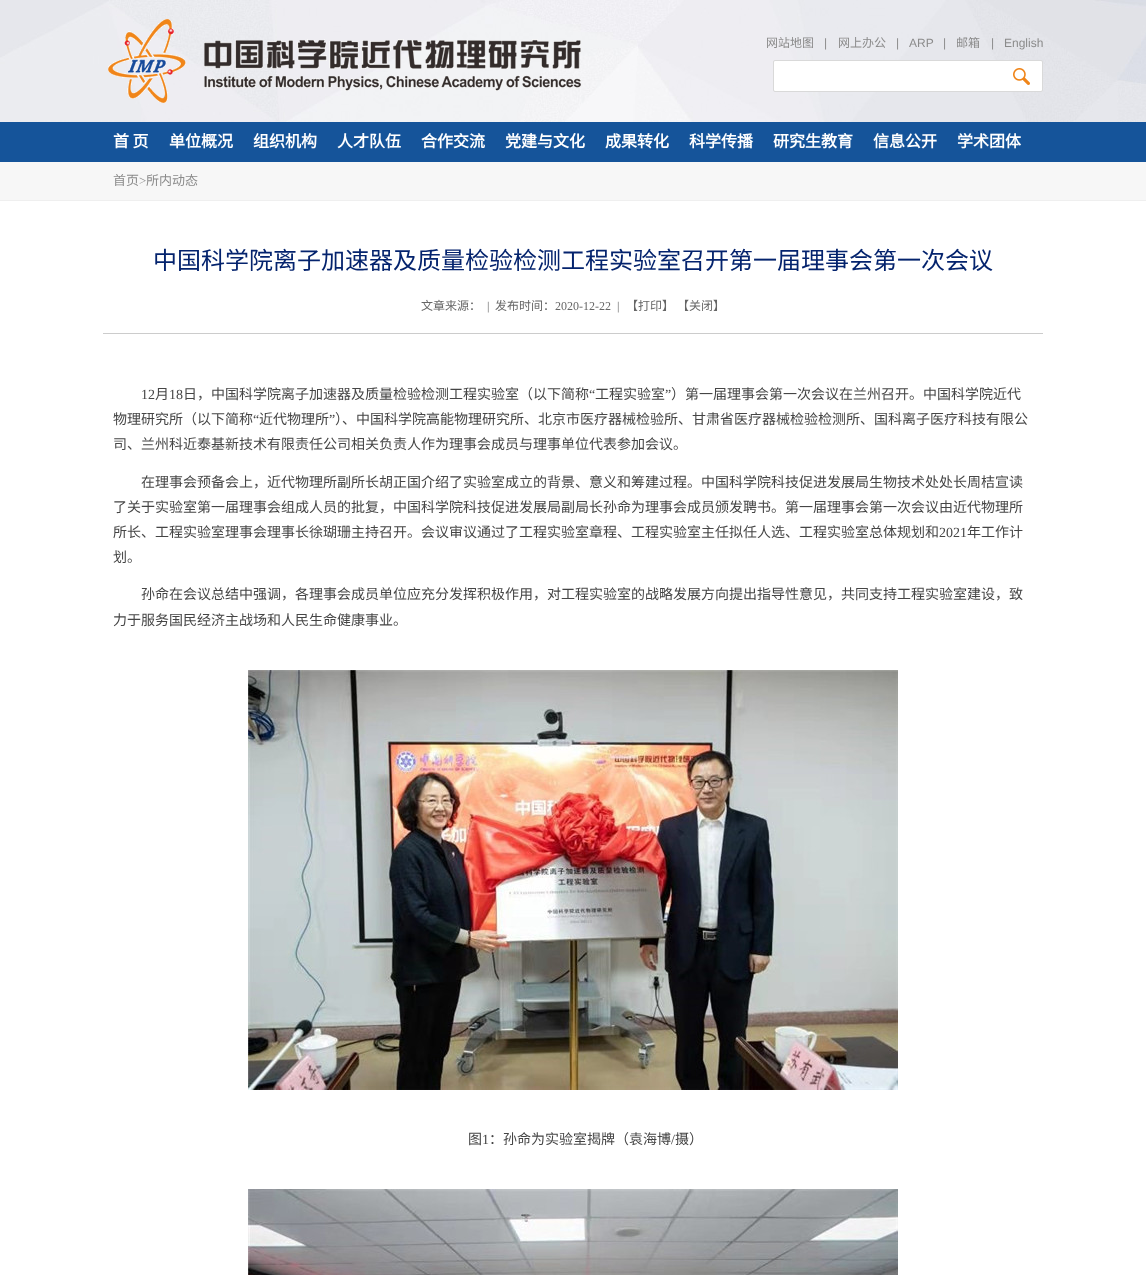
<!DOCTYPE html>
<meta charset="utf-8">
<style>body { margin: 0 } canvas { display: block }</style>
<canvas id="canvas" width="1146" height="1275"></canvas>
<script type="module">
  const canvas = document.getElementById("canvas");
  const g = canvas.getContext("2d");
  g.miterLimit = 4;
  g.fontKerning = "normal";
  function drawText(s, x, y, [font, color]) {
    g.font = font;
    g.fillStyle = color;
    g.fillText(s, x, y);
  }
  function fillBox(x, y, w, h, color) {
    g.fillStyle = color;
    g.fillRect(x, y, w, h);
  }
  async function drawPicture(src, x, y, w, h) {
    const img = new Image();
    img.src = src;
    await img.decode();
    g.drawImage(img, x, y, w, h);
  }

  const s1 = ["12px Noto Sans CJK SC", "#8B8B8B"];
  const s2 = ["12px Liberation Sans", "#8B8B8B"];
  const s3 = ["bold 16px Noto Sans CJK SC", "#FFFFFF"];
  const s4 = ["13px Noto Sans CJK SC", "#8B8B8B"];
  const s5 = ["13px Liberation Serif", "#8B8B8B"];
  const s6 = ["24px Noto Sans CJK SC", "#04236D"];
  const s7 = ["12px Noto Sans CJK SC", "#666666"];
  const s8 = ["12px Liberation Serif", "#666666"];
  const s9 = ["14px Liberation Serif", "#454545"];
  const s10 = ["14px Noto Sans CJK SC", "#454545"];

  fillBox(0, 0, 1146, 1275, "#FFFFFF");
  await drawPicture("pic1.png", 0, 0, 1146, 122);
  await drawPicture("pic2.png", 108, 19, 473, 84);
  drawText("网站地图", 766, 47, s1);
  drawText("|", 824, 47, s2);
  drawText("网上办公", 838, 47, s1);
  drawText("|", 896, 47, s2);
  drawText("ARP", 909, 47, s2);
  drawText("|", 943, 47, s2);
  drawText("邮箱", 956, 47, s1);
  drawText("|", 991, 47, s2);
  drawText("English", 1004, 47, s2);
  g.fillStyle = "#FFFFFF";
  g.beginPath();
  g.roundRect(773.5, 60.5, 269, 31, 1.5);
  g.fill();
  g.strokeStyle = "#D9D9D9";
  g.stroke();
  await drawPicture("pic3.png", 1013, 68, 17, 17);
  fillBox(0, 122, 1146, 40, "#15549A");
  drawText("首 页", 113, 147, s3);
  drawText("单位概况", 169, 147, s3);
  drawText("组织机构", 253, 147, s3);
  drawText("人才队伍", 337, 147, s3);
  drawText("合作交流", 421, 147, s3);
  drawText("党建与文化", 505, 147, s3);
  drawText("成果转化", 605, 147, s3);
  drawText("科学传播", 689, 147, s3);
  drawText("研究生教育", 773, 147, s3);
  drawText("信息公开", 873, 147, s3);
  drawText("学术团体", 957, 147, s3);
  fillBox(0, 162, 1146, 38, "#F7F7F7");
  fillBox(0, 200, 1146, 1, "#EFEFEF");
  drawText("首页", 113, 185, s4);
  drawText(">", 139, 185, s5);
  drawText("所内动态", 146, 185, s4);
  drawText("中国科学院离子加速器及质量检验检测工程实验室召开第一届理事会第一次会议", 153, 269, s6);
  fillBox(103, 333, 940, 1, "#CCCCCC");
  drawText("文章来源：", 421, 310, s7);
  drawText("|", 487, 310, s8);
  drawText("发布时间：", 495, 310, s7);
  drawText("2020-12-22  |", 555, 310, s8);
  drawText("【打印】", 626, 310, s7);
  drawText("【关闭】", 677, 310, s7);
  drawText("12", 141, 399, s9);
  drawText("月", 155, 399, s10);
  drawText("18", 169, 399, s9);
  drawText("日，中国科学院离子加速器及质量检验检测工程实验室（以下简称", 183, 399, s10);
  drawText("“", 589, 399, s9);
  drawText("工程实验室", 595, 399, s10);
  drawText("”", 665, 399, s9);
  drawText("）第一届理事会第一次会议在兰州召开。中国科学院近代", 671, 399, s10);
  drawText("物理研究所（以下简称", 113, 424, s10);
  drawText("“", 253, 424, s9);
  drawText("近代物理所", 259, 424, s10);
  drawText("”", 329, 424, s9);
  drawText("）、中国科学院高能物理研究所、北京市医疗器械检验所、甘肃省医疗器械检验检测所、国科离子医疗科技有限公", 335, 424, s10);
  drawText("司、兰州科近泰基新技术有限责任公司相关负责人作为理事会成员与理事单位代表参加会议。", 113, 449, s10);
  drawText("在理事会预备会上，近代物理所副所长胡正国介绍了实验室成立的背景、意义和筹建过程。中国科学院科技促进发展局生物技术处处长周桔宣读", 141, 487, s10);
  drawText("了关于实验室第一届理事会组成人员的批复，中国科学院科技促进发展局副局长孙命为理事会成员颁发聘书。第一届理事会第一次会议由近代物理所", 113, 512, s10);
  drawText("所长、工程实验室理事会理事长徐瑚珊主持召开。会议审议通过了工程实验室章程、工程实验室主任拟任人选、工程实验室总体规划和", 113, 537, s10);
  drawText("2021", 939, 537, s9);
  drawText("年工作计", 967, 537, s10);
  drawText("划。", 113, 562, s10);
  drawText("孙命在会议总结中强调，各理事会成员单位应充分发挥积极作用，对工程实验室的战略发展方向提出指导性意见，共同支持工程实验室建设，致", 141, 599, s10);
  drawText("力于服务国民经济主战场和人民生命健康事业。", 113, 625, s10);
  await drawPicture("pic4.png", 248, 670, 650, 420);
  drawText("图", 468, 1144, s10);
  drawText("1", 482, 1144, s9);
  drawText("：孙命为实验室揭牌（袁海博", 489, 1144, s10);
  drawText("/", 671, 1144, s9);
  drawText("摄）", 675, 1144, s10);
  await drawPicture("pic5.png", 248, 1189, 650, 86);
</script>
